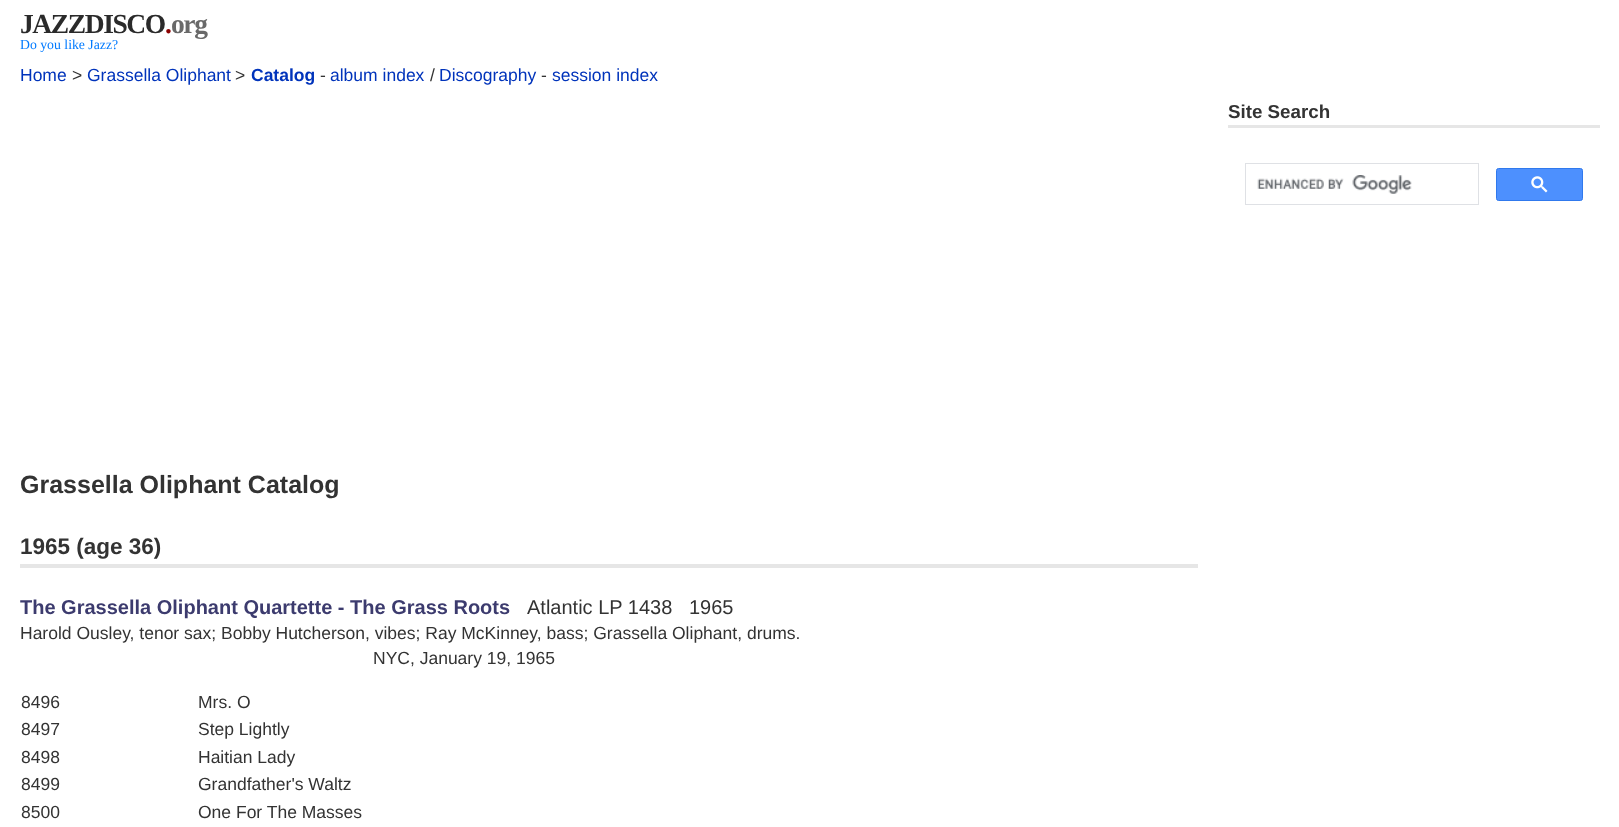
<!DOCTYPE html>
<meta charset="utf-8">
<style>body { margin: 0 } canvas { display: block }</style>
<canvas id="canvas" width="1619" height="827"></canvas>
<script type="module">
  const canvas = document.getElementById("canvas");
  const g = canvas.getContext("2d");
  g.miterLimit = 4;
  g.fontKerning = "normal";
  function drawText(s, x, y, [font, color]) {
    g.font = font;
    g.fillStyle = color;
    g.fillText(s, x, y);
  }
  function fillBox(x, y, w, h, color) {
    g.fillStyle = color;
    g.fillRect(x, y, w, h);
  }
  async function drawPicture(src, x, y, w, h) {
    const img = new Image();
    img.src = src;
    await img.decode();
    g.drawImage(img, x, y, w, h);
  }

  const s1 = ["bold 27.5px Liberation Serif", "#2A2A2A"];
  const s2 = ["bold 27.5px Liberation Serif", "#8B0000"];
  const s3 = ["bold 27.5px Liberation Serif", "#696969"];
  const s4 = ["13.75px Liberation Serif", "#007AFF"];
  const s5 = ["17.5px Liberation Sans", "#0033BB"];
  const s6 = ["17.5px Liberation Sans", "#333333"];
  const s7 = ["bold 17.5px Liberation Sans", "#0033BB"];
  const s8 = ["bold 18.75px Liberation Sans", "#333333"];
  const s9 = ["bold 25px Liberation Sans", "#333333"];
  const s10 = ["bold 22.5px Liberation Sans", "#333333"];
  const s11 = ["bold 20px Liberation Sans", "#3C3B6E"];
  const s12 = ["20px Liberation Sans", "#333333"];

  fillBox(0, 0, 1619, 827, "#FFFFFF");
  g.letterSpacing = "-1.4px";
  drawText("JAZZDISCO", 20, 33, s1);
  drawText(".", 165, 33, s2);
  drawText("org", 171, 33, s3);
  g.letterSpacing = "0px";
  drawText("Do you like Jazz?", 20, 49, s4);
  drawText("Home", 20, 81, s5);
  drawText(">", 72, 81, s6);
  drawText("Grassella Oliphant", 87, 81, s5);
  drawText(">", 235, 81, s6);
  drawText("Catalog", 251, 81, s7);
  drawText("-", 320, 81, s6);
  drawText("album index", 330, 81, s5);
  drawText("/", 430, 81, s6);
  drawText("Discography", 439, 81, s5);
  drawText("-", 541, 81, s6);
  drawText("session index", 552, 81, s5);
  fillBox(1228, 125, 372, 3, "#E6E6E6");
  drawText("Site Search", 1228, 118, s8);
  g.strokeStyle = "#DFE1E5";
  g.strokeRect(1245.5, 163.5, 233, 41);
  await drawPicture("pic1.png", 1257, 175, 155, 19);
  g.fillStyle = "#4D90FE";
  g.beginPath();
  g.roundRect(1496.5, 168.5, 86, 32, 2);
  g.fill();
  g.strokeStyle = "#3079ED";
  g.stroke();
  await drawPicture("pic2.png", 1531, 176, 17, 17);
  drawText("Grassella Oliphant Catalog", 20, 493, s9);
  fillBox(20, 564, 1178, 4, "#E6E6E6");
  drawText("1965 (age 36)", 20, 554, s10);
  drawText("The Grassella Oliphant Quartette - The Grass Roots", 20, 614, s11);
  drawText("Atlantic LP 1438   1965", 527, 614, s12);
  drawText("Harold Ousley, tenor sax; Bobby Hutcherson, vibes; Ray McKinney, bass; Grassella Oliphant, drums.", 20, 639, s6);
  drawText("NYC, January 19, 1965", 373, 664, s6);
  drawText("8496", 21, 708, s6);
  drawText("Mrs. O", 198, 708, s6);
  drawText("8497", 21, 735, s6);
  drawText("Step Lightly", 198, 735, s6);
  drawText("8498", 21, 763, s6);
  drawText("Haitian Lady", 198, 763, s6);
  drawText("8499", 21, 790, s6);
  drawText("Grandfather's Waltz", 198, 790, s6);
  drawText("8500", 21, 818, s6);
  drawText("One For The Masses", 198, 818, s6);
</script>
